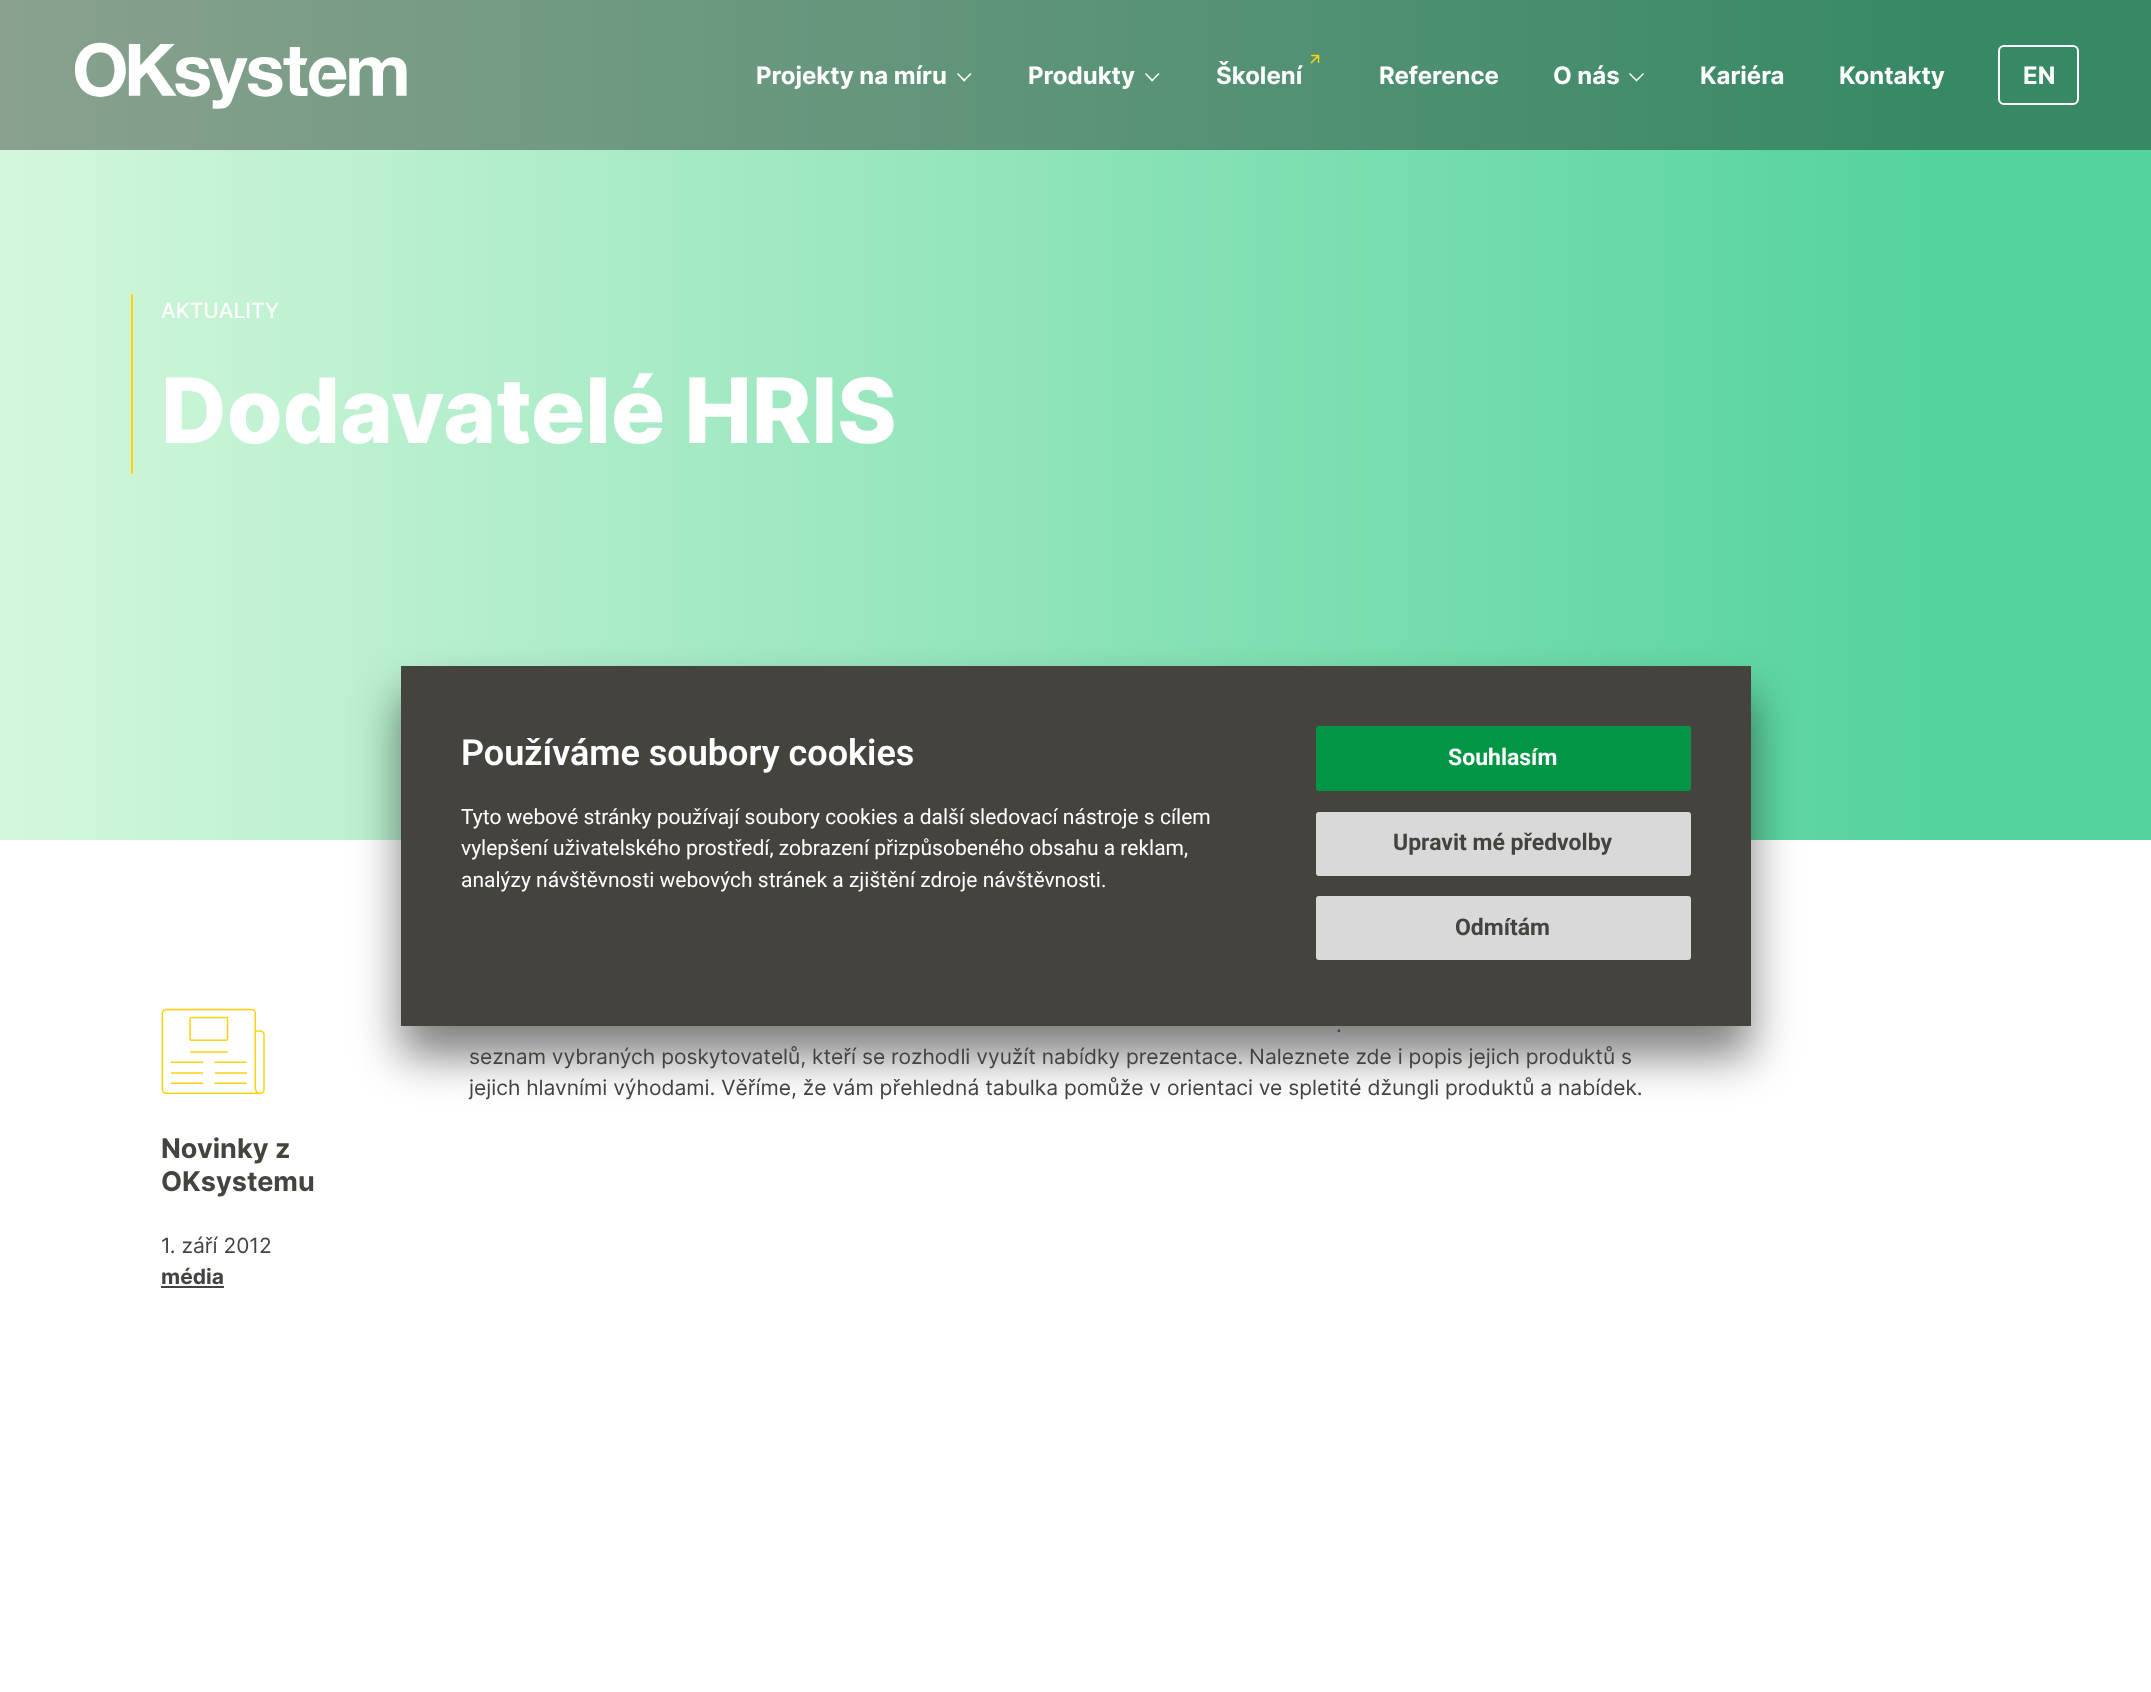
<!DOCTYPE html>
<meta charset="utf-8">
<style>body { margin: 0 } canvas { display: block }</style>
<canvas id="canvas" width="2151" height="1692"></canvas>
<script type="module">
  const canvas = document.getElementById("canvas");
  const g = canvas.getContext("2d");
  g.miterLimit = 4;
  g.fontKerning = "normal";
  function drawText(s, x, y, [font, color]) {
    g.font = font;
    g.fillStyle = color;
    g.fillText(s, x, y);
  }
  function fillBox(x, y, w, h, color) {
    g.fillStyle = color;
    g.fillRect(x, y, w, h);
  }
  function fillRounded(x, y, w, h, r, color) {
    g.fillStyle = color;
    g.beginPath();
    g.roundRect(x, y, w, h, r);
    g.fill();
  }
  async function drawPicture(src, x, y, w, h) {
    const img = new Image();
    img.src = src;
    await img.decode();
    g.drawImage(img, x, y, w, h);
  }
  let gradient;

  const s1 = ["bold 24px Inter", "#FFFFFF"];
  const s2 = ["500 21px Inter", "#FFFFFF"];
  const s3 = ["800 90px Inter", "#FFFFFF"];
  const s4 = ["600 36px Roboto", "#FFFFFF"];
  const s5 = ["bold 23px Roboto", "#FFFFFF"];
  const s6 = ["bold 23px Roboto", "#45433E"];
  const s7 = ["21px Roboto", "#FFFFFF"];
  const s8 = ["21px Inter", "#45433E"];
  const s9 = ["bold 27px Inter", "#45433E"];
  const s10 = ["bold 21px Inter", "#45433E"];

  fillBox(0, 0, 2151, 1692, "#FFFFFF");
  gradient = g.createLinearGradient(0, 420, 2151, 420);
  gradient.addColorStop(0, "#89A18E");
  gradient.addColorStop(0.9, "#378966");
  g.fillStyle = gradient;
  g.fillRect(0, 0, 2151, 150);
  await drawPicture("pic1.png", 75, 42, 332, 67);
  drawText("Projekty na míru", 756, 84, s1);
  g.beginPath();
  g.moveTo(970.5, 73);
  g.lineTo(971.5, 74);
  g.lineTo(964, 81.5);
  g.lineTo(963, 80.5);
  g.closePath();
  g.fill();
  g.beginPath();
  g.moveTo(958, 73);
  g.lineTo(965.5, 80.5);
  g.lineTo(964, 81.5);
  g.lineTo(957, 74);
  g.closePath();
  g.fill();
  drawText("Produkty", 1028, 84, s1);
  g.beginPath();
  g.moveTo(1158.5, 73);
  g.lineTo(1159.5, 74);
  g.lineTo(1152, 81.5);
  g.lineTo(1151, 80.5);
  g.closePath();
  g.fill();
  g.beginPath();
  g.moveTo(1146, 73);
  g.lineTo(1153.5, 80.5);
  g.lineTo(1152, 81.5);
  g.lineTo(1145, 74);
  g.closePath();
  g.fill();
  await drawPicture("pic2.png", 1310, 54, 10, 10);
  drawText("Školení", 1216, 84, s1);
  drawText("Reference", 1379, 84, s1);
  drawText("O nás", 1553, 84, s1);
  g.beginPath();
  g.moveTo(1643, 73);
  g.lineTo(1644, 74);
  g.lineTo(1636.5, 81.5);
  g.lineTo(1635.5, 80.5);
  g.closePath();
  g.fill();
  g.beginPath();
  g.moveTo(1630, 73);
  g.lineTo(1637.5, 80.5);
  g.lineTo(1636.5, 81.5);
  g.lineTo(1629, 74);
  g.closePath();
  g.fill();
  drawText("Kariéra", 1700, 84, s1);
  drawText("Kontakty", 1839, 84, s1);
  g.beginPath();
  g.roundRect(1999, 46, 79, 58, 5);
  g.strokeStyle = "#FFFFFF";
  g.lineWidth = 2;
  g.stroke();
  drawText("EN", 2023, 84, s1);
  gradient = g.createLinearGradient(0, 420, 2151, 420);
  gradient.addColorStop(0, "#D3F7DB");
  gradient.addColorStop(0.9, "#54D39D");
  g.fillStyle = gradient;
  g.fillRect(0, 150, 2151, 690);
  fillBox(131, 294, 2, 180, "#FFD40D");
  drawText("AKTUALITY", 161, 318, s2);
  drawText("Dodavatelé HRIS", 161, 443, s3);
  g.fillStyle = "rgba(0, 0, 0, 0.5)";
  g.filter = "blur(22.5px)";
  g.beginPath();
  g.rect(401, 696, 1350, 360);
  g.fill();
  g.filter = "none";
  fillBox(401, 666, 1350, 360, "#45433E");
  drawText("Používáme soubory cookies", 461, 765, s4);
  fillRounded(1316, 726, 375, 65, 3, "#009645");
  drawText("Souhlasím", 1448, 765, s5);
  fillRounded(1316, 812, 375, 64, 3, "#D9D9D9");
  drawText("Upravit mé předvolby", 1393, 850, s6);
  fillRounded(1316, 896, 375, 64, 3, "#D9D9D9");
  drawText("Odmítám", 1455, 935, s6);
  drawText("Tyto webové stránky používají soubory cookies a další sledovací nástroje s cílem", 461, 824, s7);
  drawText("vylepšení uživatelského prostředí, zobrazení přizpůsobeného obsahu a reklam,", 461, 855, s7);
  drawText("analýzy návštěvnosti webových stránek a zjištění zdroje návštěvnosti.", 461, 887, s7);
  drawText(".", 1336, 1032, s8);
  drawText("seznam vybraných poskytovatelů, kteří se rozhodli využít nabídky prezentace. Naleznete zde i popis jejich produktů s", 469, 1064, s8);
  drawText("jejich hlavními výhodami. Věříme, že vám přehledná tabulka pomůže v orientaci ve spletité džungli produktů a nabídek.", 469, 1095, s8);
  await drawPicture("pic3.png", 161, 1008, 104, 87);
  drawText("Novinky z", 161, 1158, s9);
  drawText("OKsystemu", 161, 1191, s9);
  drawText("1. září 2012", 161, 1253, s8);
  drawText("média", 161, 1284, s10);
  fillBox(161, 1286, 63, 2, "#45433E");
</script>
